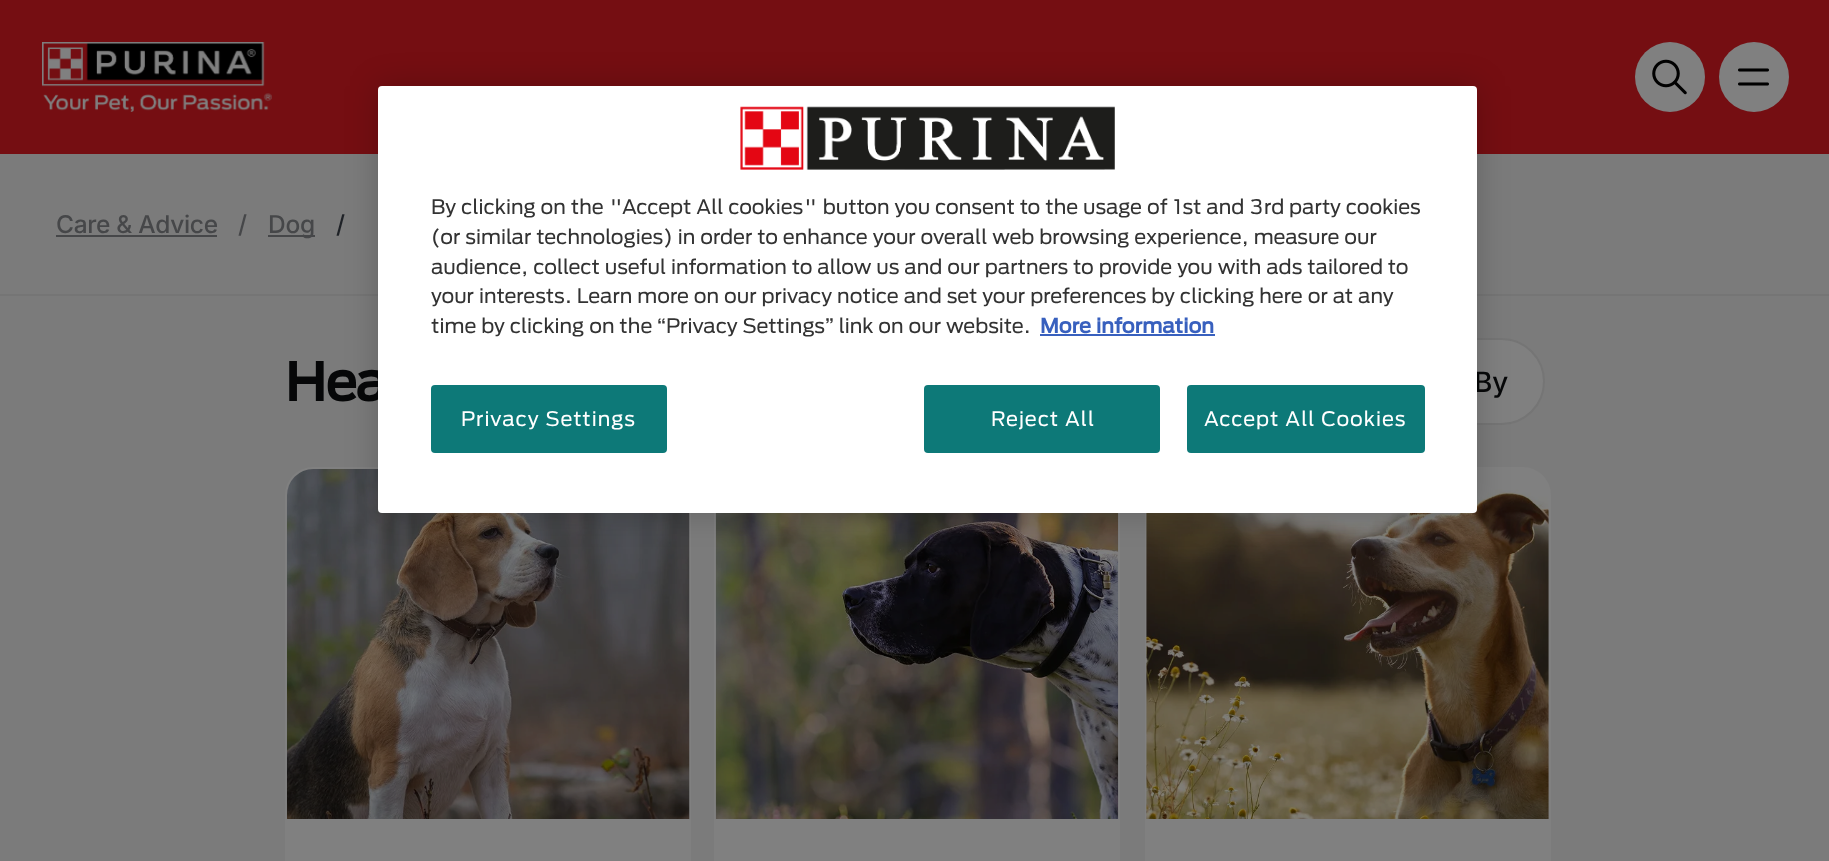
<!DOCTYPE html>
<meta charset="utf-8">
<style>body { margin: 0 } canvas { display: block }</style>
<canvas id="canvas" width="1829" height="861"></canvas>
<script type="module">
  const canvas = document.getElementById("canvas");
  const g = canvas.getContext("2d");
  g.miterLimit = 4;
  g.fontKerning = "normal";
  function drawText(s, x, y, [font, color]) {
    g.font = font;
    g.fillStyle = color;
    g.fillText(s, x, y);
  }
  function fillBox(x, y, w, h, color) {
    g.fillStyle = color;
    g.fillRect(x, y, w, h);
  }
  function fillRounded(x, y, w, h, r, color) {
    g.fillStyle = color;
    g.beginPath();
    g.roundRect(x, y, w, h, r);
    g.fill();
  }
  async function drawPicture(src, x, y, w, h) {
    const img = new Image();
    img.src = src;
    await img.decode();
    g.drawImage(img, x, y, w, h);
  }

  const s1 = ["bold 52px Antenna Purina", "#060708"];
  const s2 = ["500 28px 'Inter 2'", "#060708"];
  const s3 = ["19.9px Antenna Purina", "#333333"];
  const s4 = ["bold 19.9px Antenna Purina", "#3860BE"];
  const s5 = ["19.9px Antenna Purina", "#FFFFFF"];
  const s6 = ["500 24.5px Inter", "#464749"];
  const s7 = ["500 24.5px Inter", "#1F2227"];

  fillBox(0, 0, 1829, 861, "#7B7B7B");
  fillBox(0, 0, 1829, 154, "#750E12");
  fillBox(0, 294, 1829, 2, "#757575");
  g.fillStyle = "#808080";
  g.beginPath();
  g.roundRect(1342, 339, 202, 85, 42.5);
  g.fill();
  g.strokeStyle = "#757575";
  g.lineWidth = 2;
  g.stroke();
  fillRounded(285, 467, 406, 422, 28, "#808080");
  await drawPicture("pic5.png", 287, 469, 403, 350);
  fillBox(714, 513, 406, 348, "#808080");
  await drawPicture("pic6.png", 715, 513, 404, 306);
  fillRounded(1145, 467, 406, 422, 28, "#808080");
  await drawPicture("pic7.png", 1146, 476, 403, 343);
  g.fillStyle = "rgba(0, 0, 0, 0.2)";
  g.filter = "blur(16px)";
  g.beginPath();
  g.roundRect(378, 86, 1099, 427, 4);
  g.fill();
  g.filter = "none";
  g.letterSpacing = "-1px";
  drawText("Hea", 285, 401, s1);
  g.letterSpacing = "0px";
  drawText("By", 1474, 392, s2);
  fillRounded(378, 86, 1099, 427, 4, "#FFFFFF");
  await drawPicture("pic1.png", 740, 106, 375, 64);
  drawText("By clicking on the \"Accept All cookies\" button you consent to the usage of 1st and 3rd party cookies", 431, 214, s3);
  drawText("(or similar technologies) in order to enhance your overall web browsing experience, measure our", 431, 244, s3);
  drawText("audience, collect useful information to allow us and our partners to provide you with ads tailored to", 431, 274, s3);
  drawText("your interests. Learn more on our privacy notice and set your preferences by clicking here or at any", 431, 303, s3);
  drawText("time by clicking on the “Privacy Settings” link on our website.", 431, 333, s3);
  drawText("More information", 1040, 333, s4);
  fillBox(1040, 334, 175, 2, "#3860BE");
  fillRounded(431, 385, 236, 68, 4, "#0D7978");
  g.letterSpacing = "1px";
  drawText("Privacy Settings", 461, 426, s5);
  fillRounded(924, 385, 236, 68, 4, "#0D7978");
  drawText("Reject All", 991, 426, s5);
  fillRounded(1187, 385, 238, 68, 4, "#0D7978");
  drawText("Accept All Cookies", 1204, 426, s5);
  await drawPicture("pic2.png", 42, 42, 230, 70);
  g.fillStyle = "#808080";
  g.beginPath();
  g.arc(1670, 77, 35, 0, Math.PI * 2);
  g.fill();
  await drawPicture("pic3.png", 1652, 59, 35, 36);
  g.beginPath();
  g.arc(1754, 77, 35, 0, Math.PI * 2);
  g.fill();
  await drawPicture("pic4.png", 1738, 68, 31, 18);
  g.letterSpacing = "-0.3px";
  drawText("Care & Advice", 56, 233, s6);
  fillBox(56, 235, 161, 2, "#464749");
  drawText("/", 238, 233, s6);
  fillBox(268, 235, 47, 2, "#464749");
  drawText("Dog", 268, 233, s6);
  drawText("/", 336, 233, s7);
</script>
